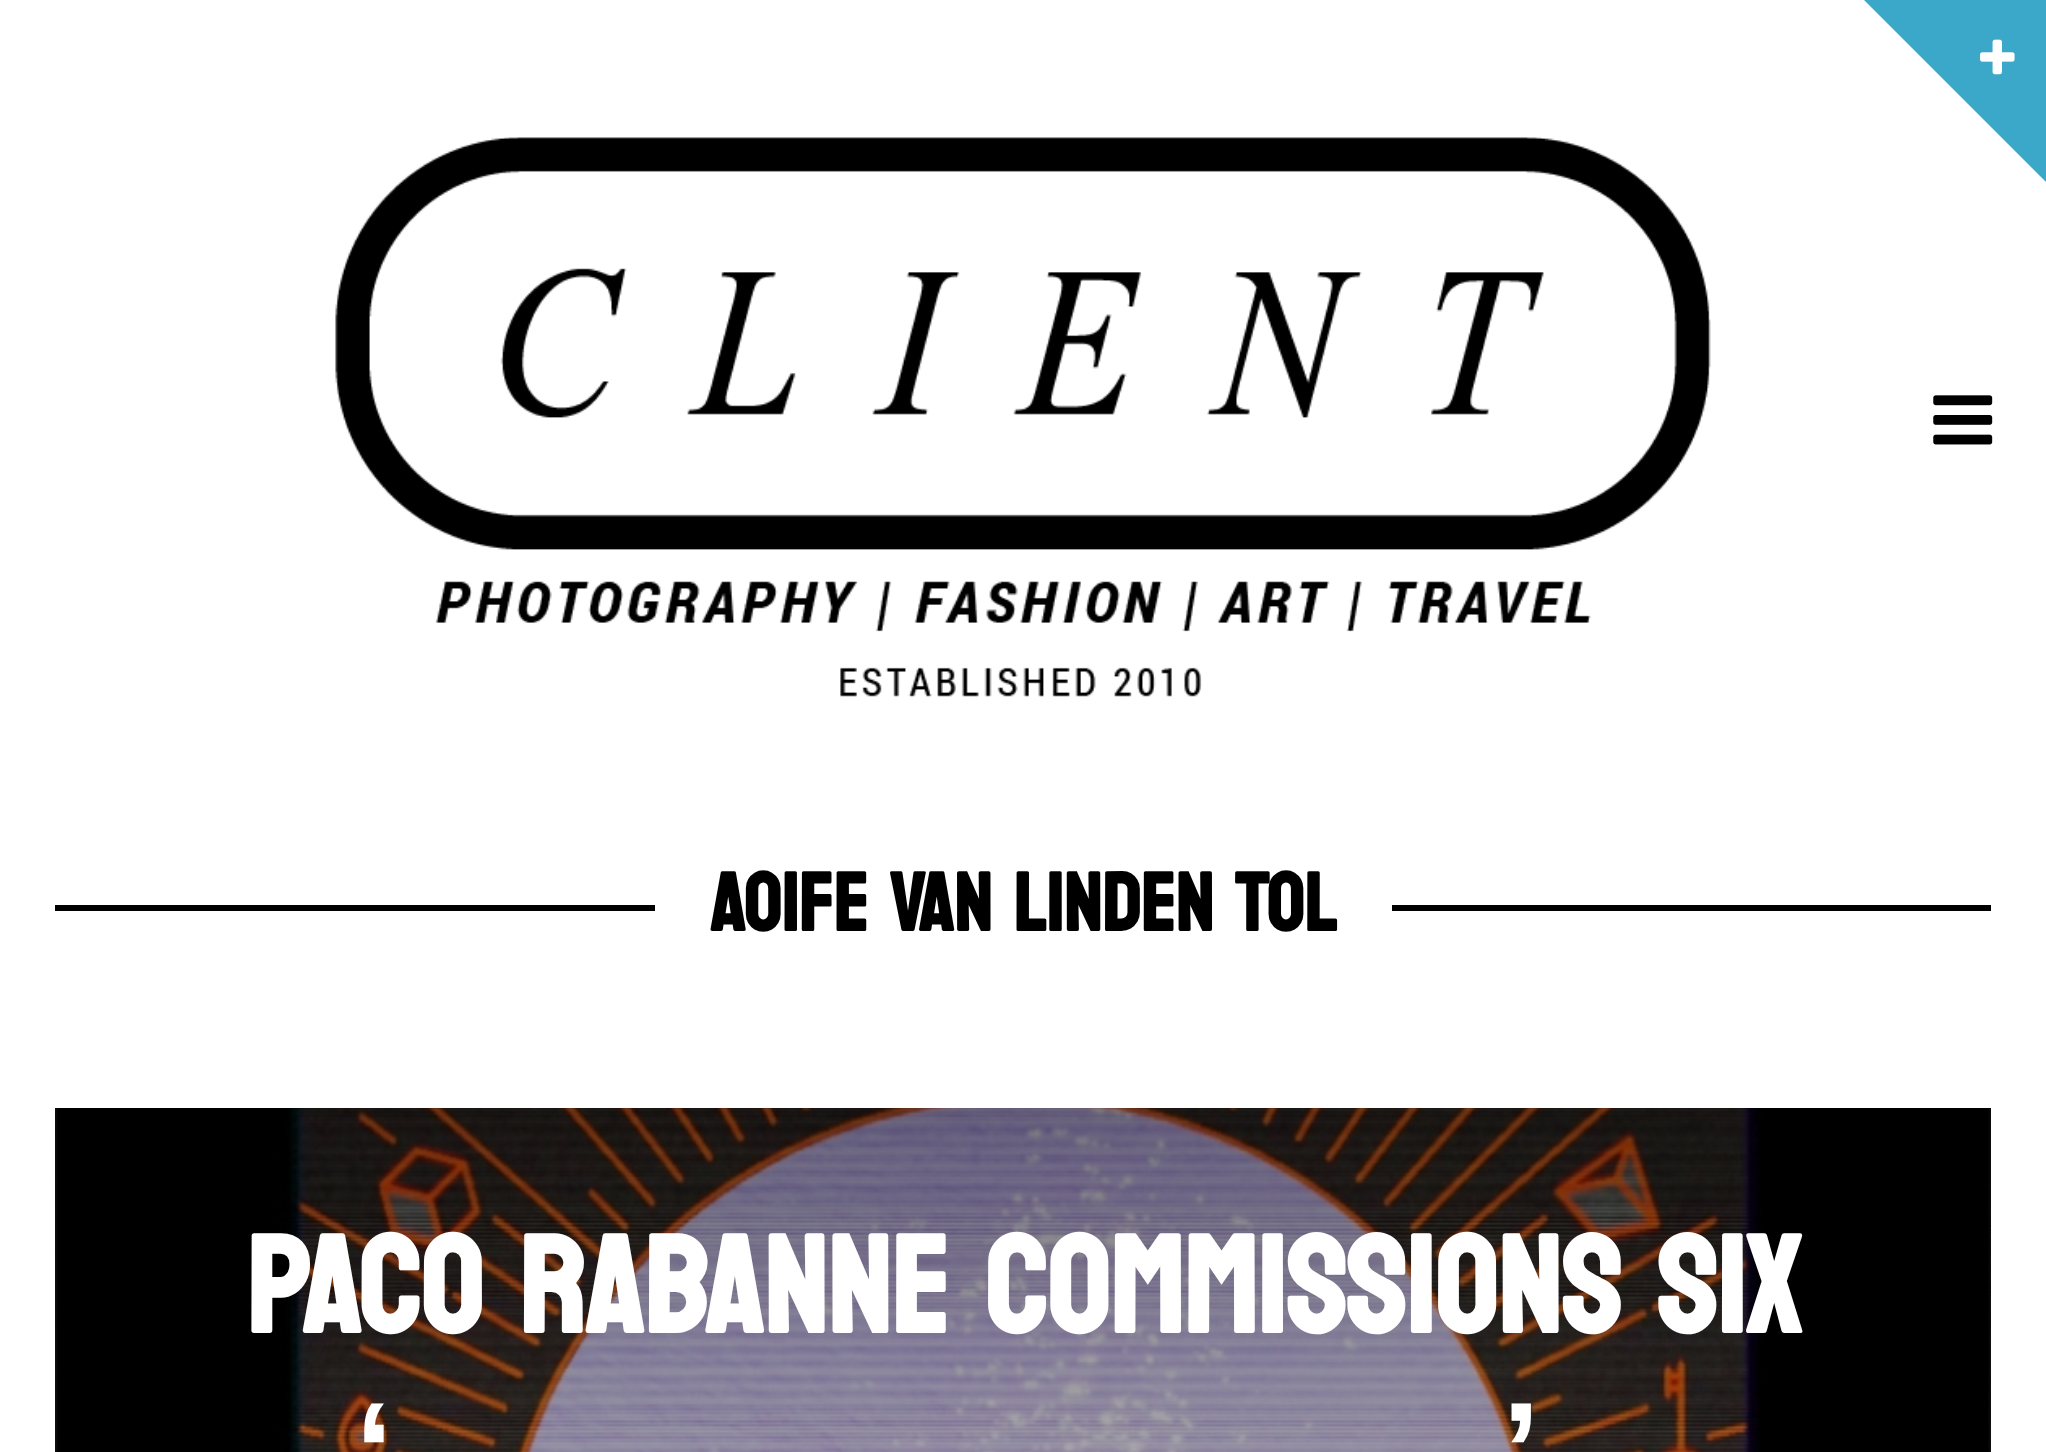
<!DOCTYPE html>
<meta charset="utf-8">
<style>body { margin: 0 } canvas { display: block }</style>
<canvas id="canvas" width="2046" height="1452"></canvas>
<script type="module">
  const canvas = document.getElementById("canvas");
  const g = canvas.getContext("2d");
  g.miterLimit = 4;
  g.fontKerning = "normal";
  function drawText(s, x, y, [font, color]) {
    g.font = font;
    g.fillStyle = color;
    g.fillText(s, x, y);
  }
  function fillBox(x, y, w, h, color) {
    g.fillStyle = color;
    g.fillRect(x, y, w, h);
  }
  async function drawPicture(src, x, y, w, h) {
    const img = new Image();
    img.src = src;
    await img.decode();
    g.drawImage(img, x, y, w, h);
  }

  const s1 = ["bold 82.5px Koulen", "#000000"];
  const s2 = ["bold 137.5px Koulen", "#FFFFFF"];
  const s3 = ["bold 137.5px Liberation Sans", "#FFFFFF"];

  fillBox(0, 0, 2046, 1452, "#FFFFFF");
  g.fillStyle = "#3CA8C9";
  g.beginPath();
  g.moveTo(2046, 0);
  g.lineTo(2046, 182);
  g.lineTo(1864, 0);
  g.closePath();
  g.fill();
  await drawPicture("pic1.png", 1980, 39, 35, 36);
  await drawPicture("pic2.png", 335, 137, 1376, 560);
  await drawPicture("pic3.png", 1933, 395, 60, 50);
  fillBox(55, 905, 1936, 6, "#000000");
  fillBox(655, 905, 737, 6, "#FFFFFF");
  drawText("AOIFE VAN LINDEN TOL", 710, 931, s1);
  await drawPicture("pic4.png", 55, 1108, 1936, 344);
  drawText("PACO RABANNE COMMISSIONS SIX", 246, 1333, s2);
  drawText("‘", 355, 1498, s3);
  drawText("’", 1502, 1498, s3);
</script>
